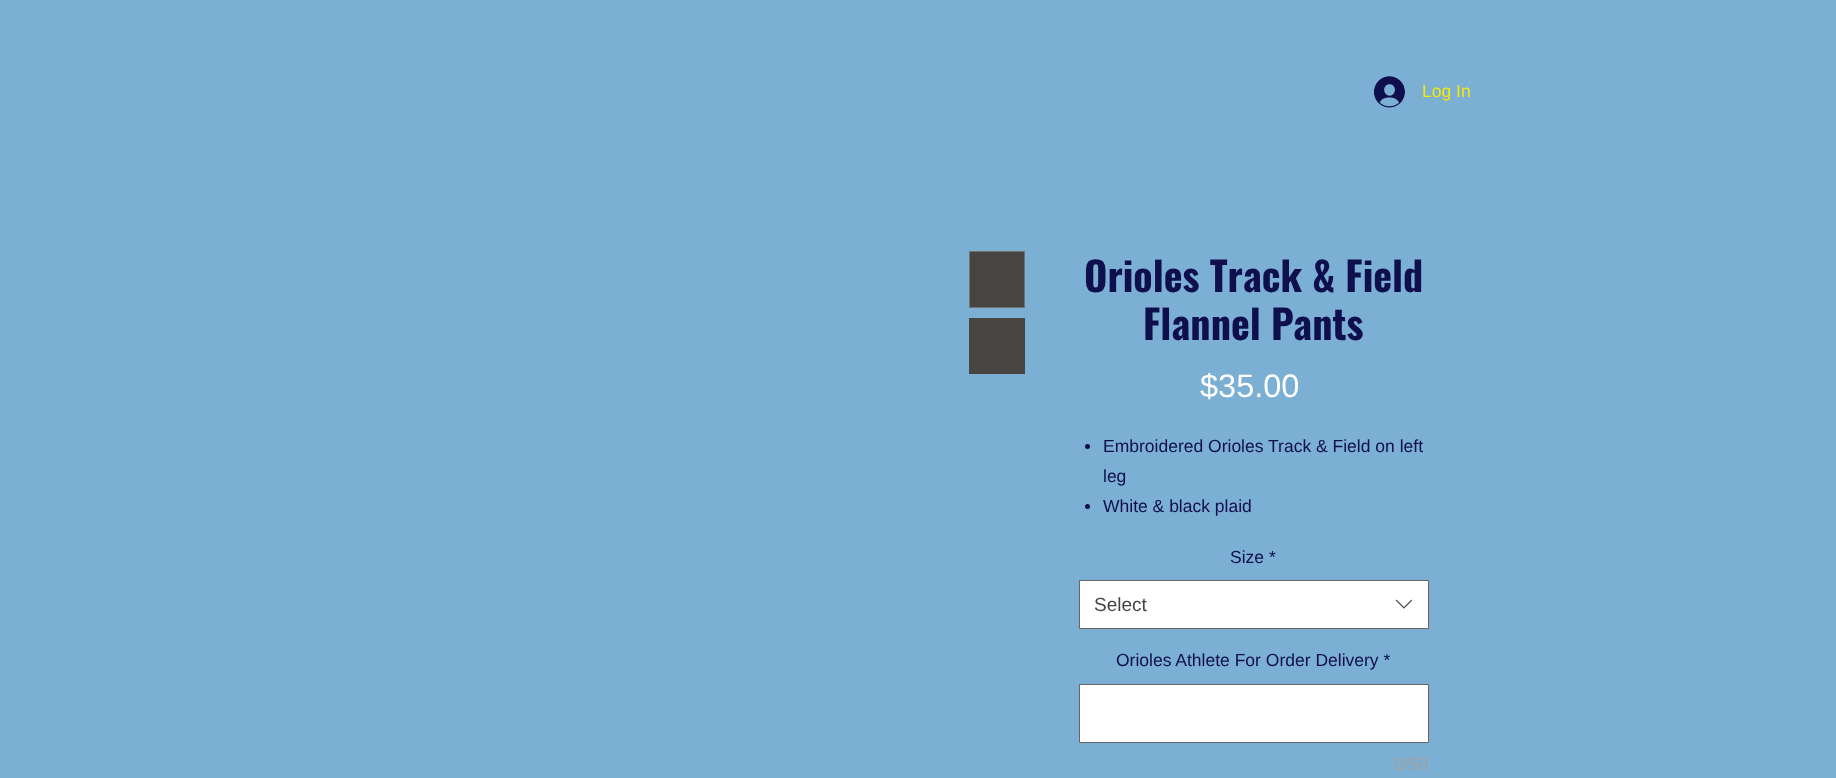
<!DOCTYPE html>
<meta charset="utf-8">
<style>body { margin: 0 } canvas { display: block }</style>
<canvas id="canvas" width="1836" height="778"></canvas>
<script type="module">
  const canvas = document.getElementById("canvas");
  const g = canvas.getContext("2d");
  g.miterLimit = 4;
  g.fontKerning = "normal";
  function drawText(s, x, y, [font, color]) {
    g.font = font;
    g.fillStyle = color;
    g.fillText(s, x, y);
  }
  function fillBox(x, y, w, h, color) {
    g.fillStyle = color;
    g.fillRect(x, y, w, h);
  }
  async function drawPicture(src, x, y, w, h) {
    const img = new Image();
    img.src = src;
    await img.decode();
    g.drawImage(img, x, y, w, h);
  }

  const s1 = ["17.5px Liberation Sans", "#F4E909"];
  const s2 = ["bold 40px Oswald", "#0F0F4D"];
  const s3 = ["32.5px Liberation Sans", "#FFFFFF"];
  const s4 = ["17.5px Liberation Sans", "#0F0F4D"];
  const s5 = ["19px Liberation Sans", "#444444"];
  const s6 = ["17.5px Liberation Sans", "#A39F9F"];

  fillBox(0, 0, 1836, 778, "#7BAFD4");
  await drawPicture("pic1.png", 1374, 76, 31, 32);
  drawText("Log In", 1422, 97, s1);
  g.fillStyle = "#484444";
  g.beginPath();
  g.rect(969.5, 251.5, 55, 56);
  g.fill();
  g.strokeStyle = "#767171";
  g.stroke();
  fillBox(969, 318, 56, 56, "#484444");
  drawText("Orioles Track & Field", 1084, 292, s2);
  drawText("Flannel Pants", 1143, 340, s2);
  drawText("$35.00", 1200, 397, s3);
  g.fillStyle = "#0F0F4D";
  g.beginPath();
  g.arc(1087.5, 446.5, 2.5, 0, Math.PI * 2);
  g.fill();
  drawText("Embroidered Orioles Track & Field on left", 1103, 452, s4);
  drawText("leg", 1103, 482, s4);
  g.beginPath();
  g.arc(1087.5, 506.5, 2.5, 0, Math.PI * 2);
  g.fill();
  drawText("White & black plaid", 1103, 512, s4);
  drawText("Size *", 1230, 563, s4);
  g.fillStyle = "#FFFFFF";
  g.beginPath();
  g.rect(1079.5, 580.5, 349, 48);
  g.fill();
  g.strokeStyle = "#666666";
  g.stroke();
  drawText("Select", 1094, 611, s5);
  await drawPicture("pic2.png", 1395, 599, 18, 10);
  drawText("Orioles Athlete For Order Delivery *", 1116, 666, s4);
  g.fillStyle = "#FFFFFF";
  g.beginPath();
  g.rect(1079.5, 684.5, 349, 58);
  g.fill();
  g.stroke();
  drawText("0/50", 1394, 770, s6);
</script>
